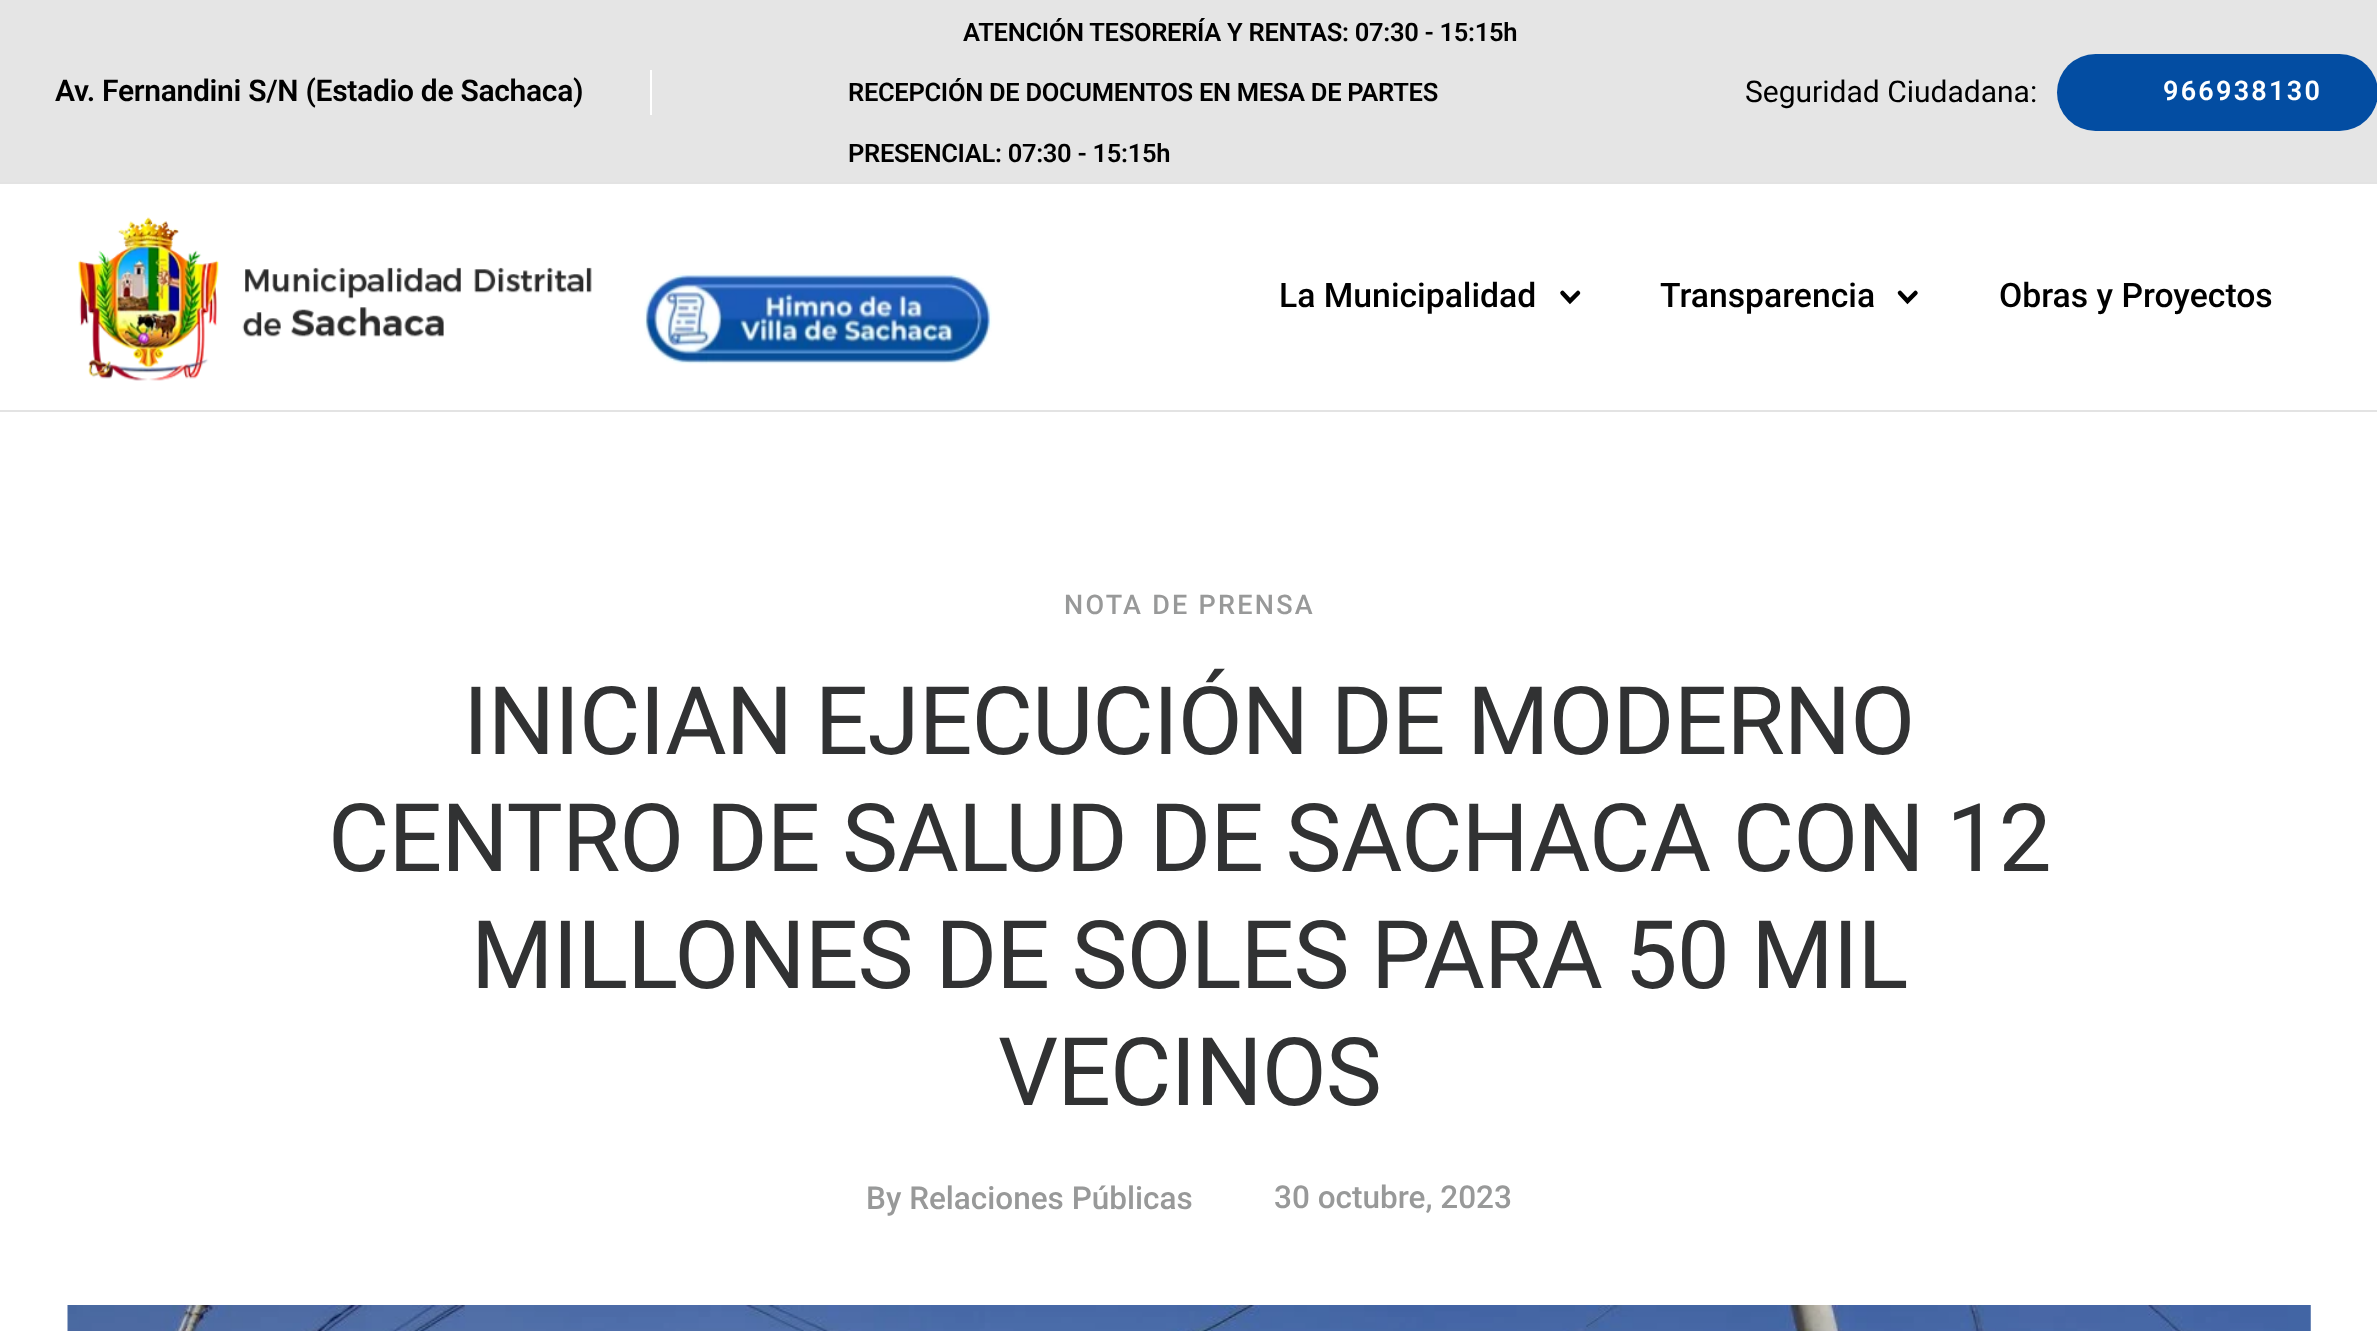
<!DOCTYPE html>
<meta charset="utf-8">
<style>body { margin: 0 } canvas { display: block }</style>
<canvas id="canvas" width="2377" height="1331"></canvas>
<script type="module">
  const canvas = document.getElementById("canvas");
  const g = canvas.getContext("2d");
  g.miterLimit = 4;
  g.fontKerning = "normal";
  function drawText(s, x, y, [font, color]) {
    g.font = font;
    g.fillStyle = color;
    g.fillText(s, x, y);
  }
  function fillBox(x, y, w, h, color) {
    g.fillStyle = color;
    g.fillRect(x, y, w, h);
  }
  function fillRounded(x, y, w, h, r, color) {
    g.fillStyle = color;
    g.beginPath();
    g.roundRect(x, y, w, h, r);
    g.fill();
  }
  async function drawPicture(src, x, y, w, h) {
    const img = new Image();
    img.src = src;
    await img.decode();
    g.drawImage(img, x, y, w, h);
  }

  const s1 = ["600 30px Roboto", "#000000"];
  const s2 = ["600 25.5px Roboto", "#000000"];
  const s3 = ["30px Roboto", "#000000"];
  const s4 = ["600 27px Roboto", "#FFFFFF"];
  const s5 = ["500 33.75px Roboto", "#000000"];
  const s6 = ["500 27px Roboto", "#989999"];
  const s7 = ["94.5px Roboto", "#313233"];
  const s8 = ["500 31.5px Roboto", "#989999"];

  fillBox(0, 0, 2377, 1331, "#FFFFFF");
  fillBox(0, 0, 2377, 182, "#E5E5E5");
  fillBox(0, 182, 2377, 2, "#E3E3E3");
  g.letterSpacing = "-0.3px";
  drawText("Av. Fernandini S/N (Estadio de Sachaca)", 55, 101, s1);
  fillBox(650, 70, 2, 45, "#FFFFFF");
  drawText("ATENCIÓN TESORERÍA Y RENTAS: 07:30 - 15:15h", 963, 41, s2);
  drawText("RECEPCIÓN DE DOCUMENTOS EN MESA DE PARTES", 848, 101, s2);
  drawText("PRESENCIAL: 07:30 - 15:15h", 848, 162, s2);
  g.letterSpacing = "0px";
  drawText("Seguridad Ciudadana:", 1745, 102, s3);
  fillRounded(2057, 54, 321, 77, 38.5, "#034DA2");
  g.letterSpacing = "2.25px";
  drawText("966938130", 2163, 100, s4);
  fillBox(0, 410, 2377, 2, "#E3E3E3");
  await drawPicture("pic1.png", 78, 217, 514, 164);
  await drawPicture("pic2.png", 644, 273, 348, 91);
  g.letterSpacing = "0px";
  drawText("La Municipalidad", 1279, 307, s5);
  g.beginPath();
  g.moveTo(1578, 293);
  g.lineTo(1570, 301);
  g.lineTo(1562.5, 293);
  g.strokeStyle = "#000000";
  g.lineWidth = 4.5;
  g.lineCap = "round";
  g.stroke();
  drawText("Transparencia", 1660, 307, s5);
  g.beginPath();
  g.moveTo(1915.5, 293);
  g.lineTo(1907.5, 301);
  g.lineTo(1900, 293);
  g.stroke();
  drawText("Obras y Proyectos", 1999, 307, s5);
  g.letterSpacing = "2.25px";
  drawText("NOTA DE PRENSA", 1064, 614, s6);
  g.letterSpacing = "-0.95px";
  drawText("INICIAN EJECUCIÓN DE MODERNO", 463, 754, s7);
  drawText("CENTRO DE SALUD DE SACHACA CON 12", 328, 871, s7);
  drawText("MILLONES DE SOLES PARA 50 MIL", 471, 988, s7);
  drawText("VECINOS", 998, 1105, s7);
  g.letterSpacing = "0px";
  drawText("By Relaciones Públicas", 866, 1209, s8);
  drawText("30 octubre, 2023", 1274, 1208, s8);
  await drawPicture("pic3.png", 67, 1305, 2244, 26);
</script>
